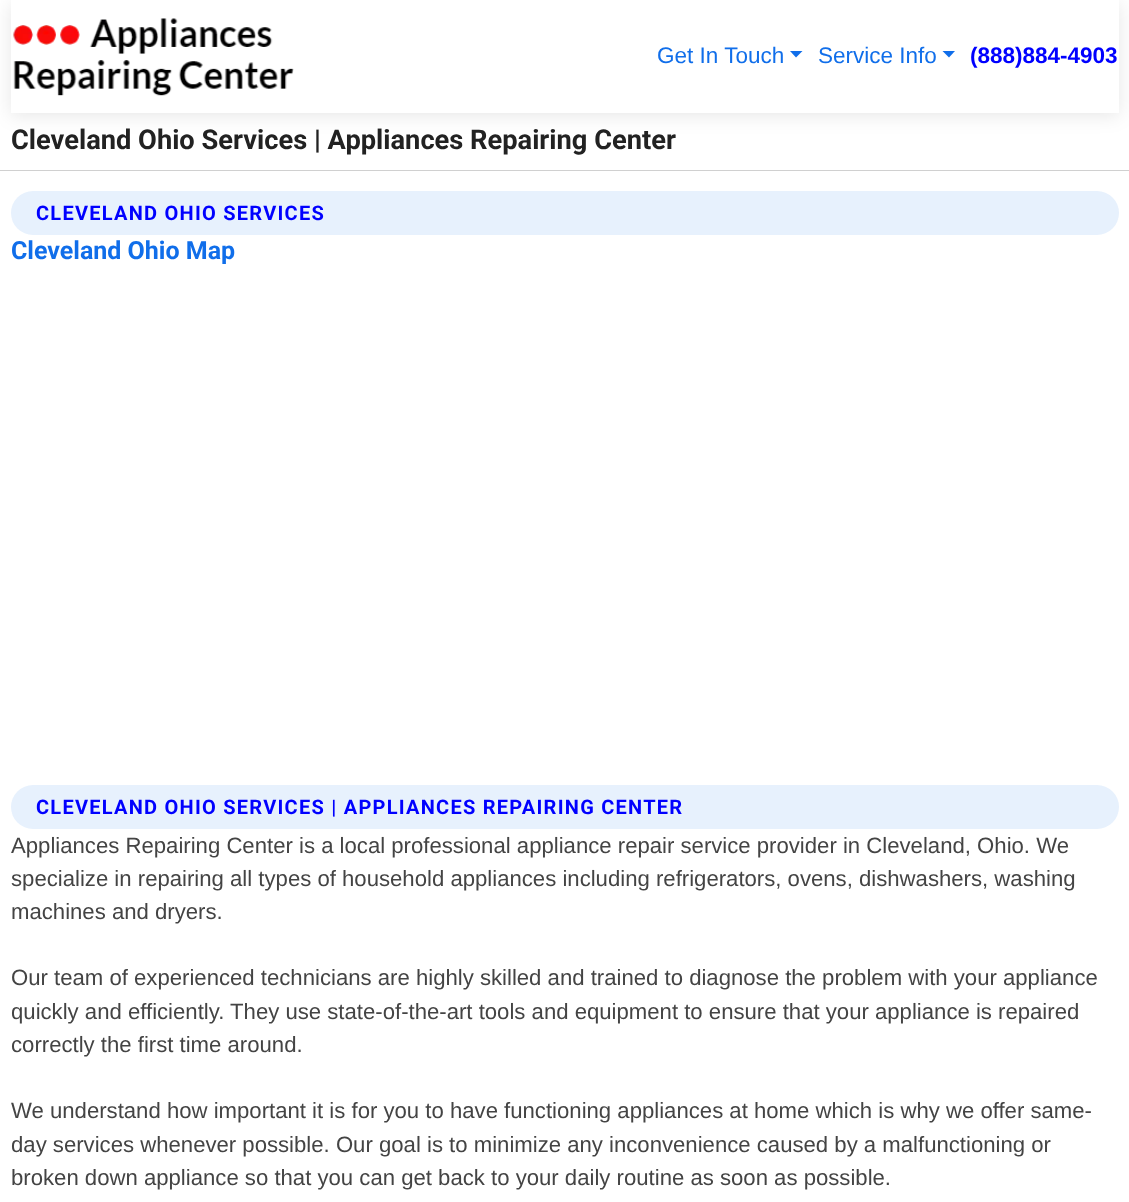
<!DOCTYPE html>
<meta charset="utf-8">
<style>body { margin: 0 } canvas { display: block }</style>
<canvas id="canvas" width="1129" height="1202"></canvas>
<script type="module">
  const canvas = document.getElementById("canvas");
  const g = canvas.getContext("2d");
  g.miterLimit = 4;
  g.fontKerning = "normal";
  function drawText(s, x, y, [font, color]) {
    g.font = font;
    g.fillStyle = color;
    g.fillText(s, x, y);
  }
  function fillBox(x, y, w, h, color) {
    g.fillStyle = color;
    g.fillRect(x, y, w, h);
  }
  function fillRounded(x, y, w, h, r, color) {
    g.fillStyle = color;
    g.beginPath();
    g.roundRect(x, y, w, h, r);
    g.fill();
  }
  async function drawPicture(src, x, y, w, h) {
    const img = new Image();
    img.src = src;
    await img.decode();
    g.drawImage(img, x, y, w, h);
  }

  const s1 = ["22.5px Liberation Sans", "#106EEA"];
  const s2 = ["bold 22.5px Liberation Sans", "#0000FF"];
  const s3 = ["bold 27.25px Roboto", "#222222"];
  const s4 = ["bold 20px Roboto", "#0000FF"];
  const s5 = ["bold 25px Roboto", "#106EEA"];
  const s6 = ["22.15px Liberation Sans", "#444444"];

  fillBox(0, 0, 1129, 1202, "#FFFFFF");
  g.fillStyle = "rgba(0, 0, 0, 0.1)";
  g.filter = "blur(9.5px)";
  g.beginPath();
  g.rect(11, 3, 1108, 112);
  g.fill();
  g.filter = "none";
  fillBox(11, 0, 1108, 113, "#FFFFFF");
  await drawPicture("pic1.png", 13, 18, 281, 78);
  drawText("Get In Touch", 657, 63, s1);
  g.beginPath();
  g.moveTo(790, 51);
  g.lineTo(802.5, 51);
  g.lineTo(796, 57.5);
  g.closePath();
  g.fill();
  drawText("Service Info", 818, 63, s1);
  g.beginPath();
  g.moveTo(942.5, 51);
  g.lineTo(955, 51);
  g.lineTo(949, 57.5);
  g.closePath();
  g.fill();
  drawText("(888)884-4903", 970, 63, s2);
  drawText("Cleveland Ohio Services | Appliances Repairing Center", 11, 149, s3);
  fillBox(0, 170, 1129, 1, "#D0D0D0");
  fillRounded(11, 191, 1108, 44, 22, "#E7F1FD");
  g.letterSpacing = "1.25px";
  drawText("CLEVELAND OHIO SERVICES", 36, 220, s4);
  g.letterSpacing = "0px";
  drawText("Cleveland Ohio Map", 11, 259, s5);
  fillRounded(11, 785, 1108, 44, 22, "#E7F1FD");
  g.letterSpacing = "1.25px";
  drawText("CLEVELAND OHIO SERVICES | APPLIANCES REPAIRING CENTER", 36, 814, s4);
  g.letterSpacing = "0px";
  drawText("Appliances Repairing Center is a local professional appliance repair service provider in Cleveland, Ohio. We", 11, 853, s6);
  drawText("specialize in repairing all types of household appliances including refrigerators, ovens, dishwashers, washing", 11, 886, s6);
  drawText("machines and dryers.", 11, 919, s6);
  drawText("Our team of experienced technicians are highly skilled and trained to diagnose the problem with your appliance", 11, 985, s6);
  drawText("quickly and efficiently. They use state-of-the-art tools and equipment to ensure that your appliance is repaired", 11, 1019, s6);
  drawText("correctly the first time around.", 11, 1052, s6);
  drawText("We understand how important it is for you to have functioning appliances at home which is why we offer same-", 11, 1118, s6);
  drawText("day services whenever possible. Our goal is to minimize any inconvenience caused by a malfunctioning or", 11, 1152, s6);
  drawText("broken down appliance so that you can get back to your daily routine as soon as possible.", 11, 1185, s6);
</script>
